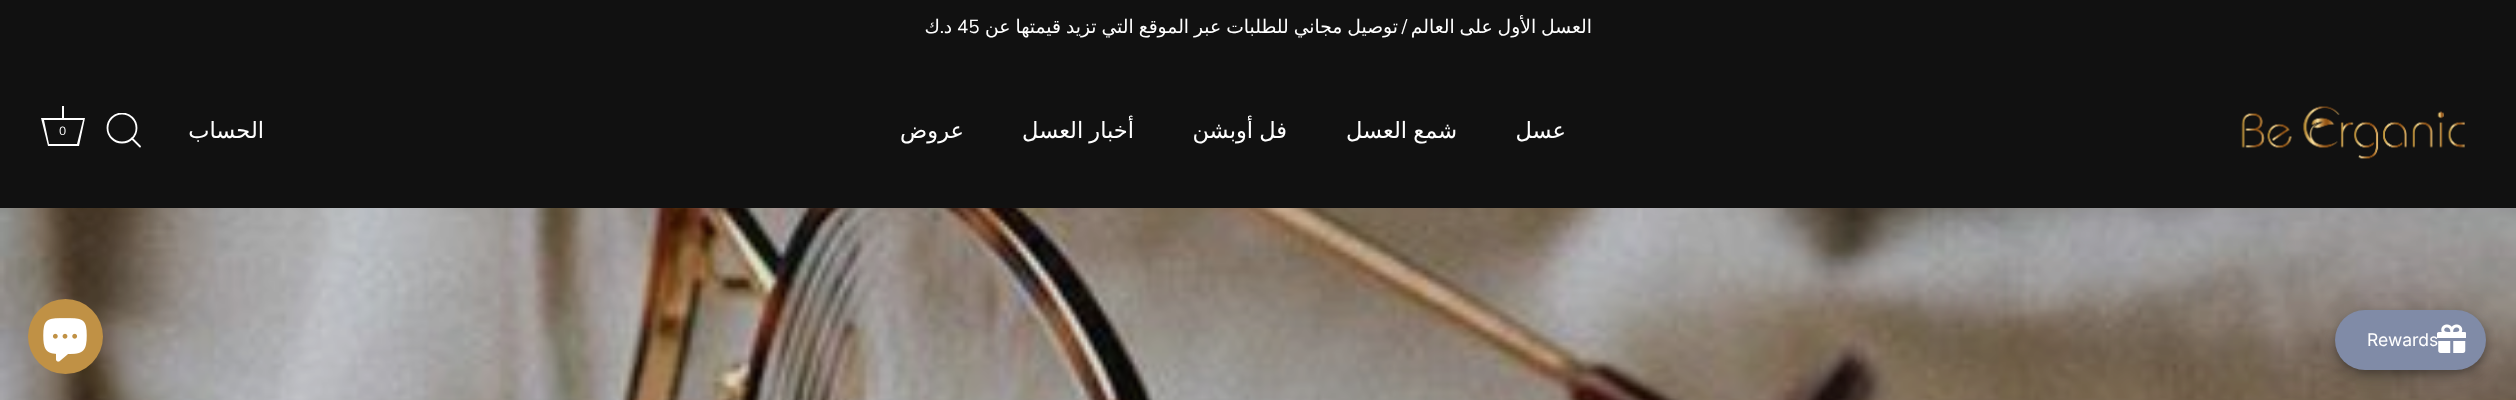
<!DOCTYPE html>
<meta charset="utf-8">
<style>body { margin: 0 } canvas { display: block }</style>
<canvas id="canvas" width="2516" height="400"></canvas>
<script type="module">
  const canvas = document.getElementById("canvas");
  const g = canvas.getContext("2d");
  g.miterLimit = 4;
  g.fontKerning = "normal";
  function drawText(s, x, y, [font, color]) {
    g.font = font;
    g.fillStyle = color;
    g.fillText(s, x, y);
  }
  function fillBox(x, y, w, h, color) {
    g.fillStyle = color;
    g.fillRect(x, y, w, h);
  }
  function fillRounded(x, y, w, h, r, color) {
    g.fillStyle = color;
    g.beginPath();
    g.roundRect(x, y, w, h, r);
    g.fill();
  }
  async function drawPicture(src, x, y, w, h) {
    const img = new Image();
    img.src = src;
    await img.decode();
    g.drawImage(img, x, y, w, h);
  }

  const s1 = ["18.75px DejaVu Sans", "#FFFFFF"];
  const s2 = ["18.75px Nunito Sans", "#FFFFFF"];
  const s3 = ["22.5px DejaVu Sans", "#FFFFFF"];
  const s4 = ["12px Nunito Sans", "#FFFFFF"];
  const s5 = ["17.5px Inter", "#FFFFFF"];

  fillBox(0, 0, 2516, 400, "#FFFFFF");
  fillBox(0, 0, 2516, 208, "#111111");
  g.wordSpacing = "-1px";
  g.direction = "rtl";
  drawText("العسل الأول على العالم", 1592, 33, s1);
  g.wordSpacing = "0px";
  drawText("/", 1407, 33, s2);
  g.wordSpacing = "-1px";
  drawText("توصيل مجاني للطلبات عبر الموقع التي تزيد قيمتها عن", 1398, 33, s1);
  g.wordSpacing = "0px";
  g.direction = "ltr";
  drawText("45", 957, 33, s2);
  g.direction = "rtl";
  drawText("د", 952, 33, s1);
  drawText(".", 944, 33, s2);
  drawText("ك", 940, 33, s1);
  await drawPicture("pic1.png", 2241, 106, 224, 53);
  drawText("عسل", 1566, 138, s3);
  g.wordSpacing = "-1px";
  drawText("شمع العسل", 1457, 138, s3);
  drawText("فل أوبشن", 1287, 138, s3);
  drawText("أخبار العسل", 1134, 138, s3);
  g.wordSpacing = "0px";
  drawText("عروض", 964, 138, s3);
  drawText("الحساب", 264, 138, s3);
  g.save();
  g.beginPath();
  g.rect(106, 113, 37, 36);
  g.clip();
  g.beginPath();
  g.arc(122, 128, 14.5, 0, Math.PI * 2);
  g.strokeStyle = "#FFFFFF";
  g.lineWidth = 1.8;
  g.stroke();
  g.restore();
  g.beginPath();
  g.moveTo(140, 146.5);
  g.lineTo(132, 138.5);
  g.strokeStyle = "#FFFFFF";
  g.lineWidth = 1.8;
  g.lineCap = "round";
  g.lineJoin = "round";
  g.stroke();
  fillBox(62, 106, 2, 12, "#FFFFFF");
  g.beginPath();
  g.moveTo(83, 120);
  g.lineTo(77, 144);
  g.lineTo(49, 144);
  g.lineTo(44, 120);
  g.lineTo(83, 120);
  g.moveTo(85, 118);
  g.lineTo(41, 118);
  g.lineTo(48, 146);
  g.lineTo(79, 146);
  g.closePath();
  g.fill();
  g.direction = "ltr";
  drawText("0", 59, 135, s4);
  await drawPicture("pic2.png", 0, 208, 2516, 192);
  g.fillStyle = "rgba(0, 0, 0, 0.12)";
  g.filter = "blur(11px)";
  g.beginPath();
  g.roundRect(2335, 311, 151, 60, 30);
  g.fill();
  g.filter = "none";
  g.fillStyle = "rgba(0, 0, 0, 0.14)";
  g.filter = "blur(6px)";
  g.beginPath();
  g.roundRect(2335, 318, 151, 60, 30);
  g.fill();
  g.filter = "none";
  g.fillStyle = "rgba(0, 0, 0, 0.2)";
  g.filter = "blur(3px)";
  g.beginPath();
  g.roundRect(2336, 315, 149, 58, 29);
  g.fill();
  g.filter = "none";
  fillRounded(2335, 310, 151, 60, 30, "#808BA7");
  drawText("Rewards", 2367, 346, s5);
  await drawPicture("pic3.png", 2437, 324, 29, 29);
  g.fillStyle = "#C09145";
  g.beginPath();
  g.arc(65.5, 336.5, 37.5, 0, Math.PI * 2);
  g.fill();
  await drawPicture("pic4.png", 43, 318, 44, 44);
</script>
